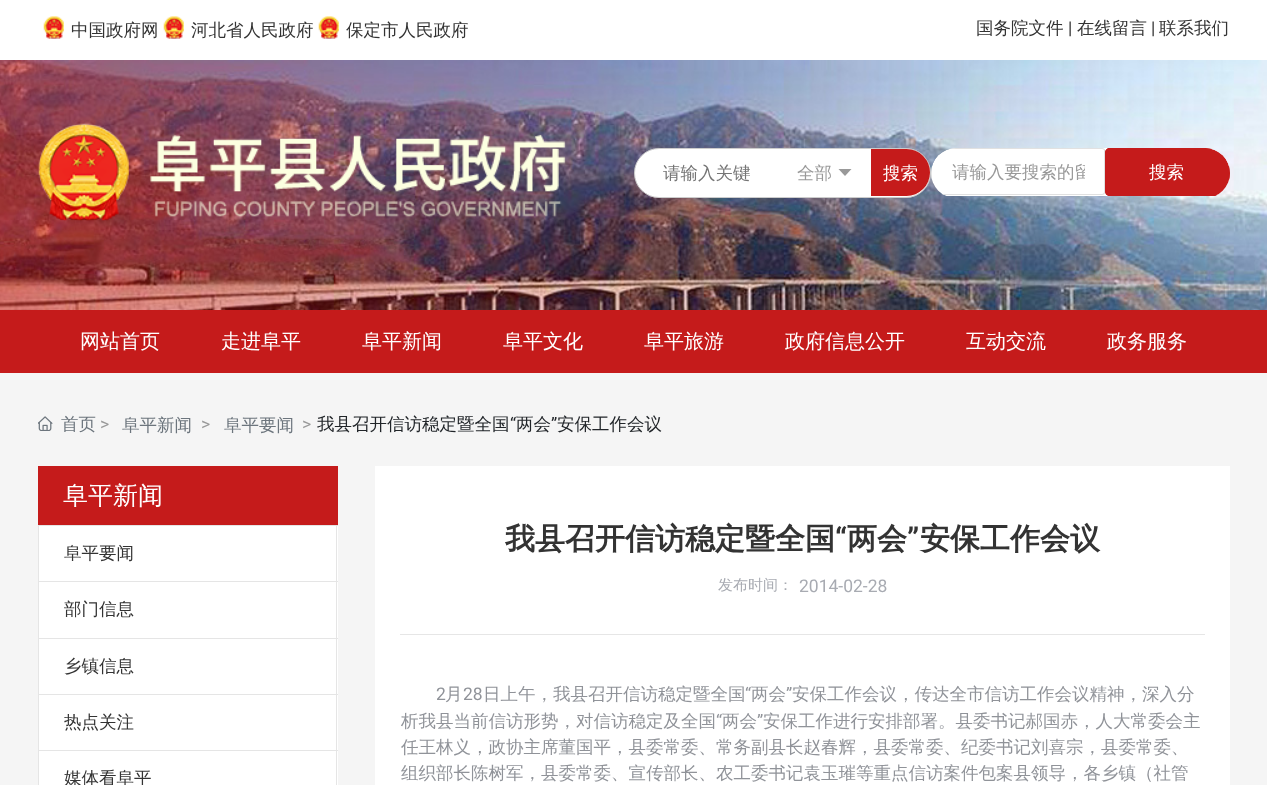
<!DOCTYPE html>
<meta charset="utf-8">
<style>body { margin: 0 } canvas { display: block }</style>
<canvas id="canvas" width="1267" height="785"></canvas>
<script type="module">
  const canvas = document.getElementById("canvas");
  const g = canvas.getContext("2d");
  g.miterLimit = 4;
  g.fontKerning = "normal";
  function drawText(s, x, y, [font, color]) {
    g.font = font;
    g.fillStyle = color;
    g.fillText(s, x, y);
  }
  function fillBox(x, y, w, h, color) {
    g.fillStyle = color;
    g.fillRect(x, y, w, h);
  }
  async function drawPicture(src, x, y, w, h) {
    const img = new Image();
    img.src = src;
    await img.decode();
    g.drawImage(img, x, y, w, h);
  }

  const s1 = ["500 17.5px WenQuanYi Zen Hei", "#333333"];
  const s2 = ["17.5px Roboto", "#333333"];
  const s3 = ["500 17.5px WenQuanYi Zen Hei", "#757575"];
  const s4 = ["500 17.5px WenQuanYi Zen Hei", "#999999"];
  const s5 = ["500 17.5px WenQuanYi Zen Hei", "#FFFFFF"];
  const s6 = ["500 20px WenQuanYi Zen Hei", "#FFFFFF"];
  const s7 = ["500 17.5px WenQuanYi Zen Hei", "#6C757D"];
  const s8 = ["17.5px Roboto", "#999999"];
  const s9 = ["500 17.5px WenQuanYi Zen Hei", "#212529"];
  const s10 = ["17.5px Roboto", "#212529"];
  const s11 = ["500 25px WenQuanYi Zen Hei", "#FFFFFF"];
  const s12 = ["bold 30px WenQuanYi Zen Hei", "#333333"];
  const s13 = ["bold 30px Roboto", "#333333"];
  const s14 = ["500 15px WenQuanYi Zen Hei", "#A8ABB2"];
  const s15 = ["17.5px Roboto", "#A8ABB2"];
  const s16 = ["17.5px Roboto", "#909399"];
  const s17 = ["500 17.5px WenQuanYi Zen Hei", "#909399"];

  fillBox(0, 0, 1267, 785, "#FFFFFF");
  await drawPicture("pic1.png", 43, 16, 21, 23);
  drawText("中国政府网", 71, 36, s1);
  await drawPicture("pic1.png", 163, 16, 21, 23);
  drawText("河北省人民政府", 191, 36, s1);
  await drawPicture("pic1.png", 318, 16, 21, 23);
  drawText("保定市人民政府", 346, 36, s1);
  drawText("国务院文件", 976, 34, s1);
  drawText("|", 1068, 34, s2);
  drawText("在线留言", 1077, 34, s1);
  drawText("|", 1151, 34, s2);
  drawText("联系我们", 1159, 34, s1);
  await drawPicture("pic2.png", 0, 60, 1267, 250);
  await drawPicture("pic3.png", 38, 123, 528, 98);
  g.fillStyle = "#FFFFFF";
  g.beginPath();
  g.roundRect(634.5, 148.5, 296, 49, 24.5);
  g.fill();
  g.strokeStyle = "#CCCCCC";
  g.stroke();
  drawText("请输入关键", 663, 179, s3);
  drawText("全部", 797, 179, s4);
  g.beginPath();
  g.moveTo(838.5, 169);
  g.lineTo(845, 176);
  g.lineTo(851.5, 169);
  g.closePath();
  g.fill();
  g.fillStyle = "#C51B1B";
  g.beginPath();
  g.roundRect(871, 149, 59, 47, [0, 23.5, 23.5, 0]);
  g.fill();
  drawText("搜索", 883, 179, s5);
  g.save();
  g.beginPath();
  g.roundRect(931, 148, 299, 50, 25);
  g.clip();
  g.beginPath();
  g.roundRect(931, 148, 299, 48, [25, 25, 0, 0]);
  g.fill();
  g.restore();
  g.fillStyle = "#E1E1E1";
  g.beginPath();
  g.moveTo(956, 148);
  g.lineTo(949, 149);
  g.lineTo(1102, 149);
  g.bezierCurveTo(1103, 149, 1104, 150, 1104, 150);
  g.lineTo(1104, 192);
  g.bezierCurveTo(1104, 193, 1103, 194, 1102, 194);
  g.lineTo(942, 194);
  g.lineTo(944, 195);
  g.lineTo(1102, 195);
  g.bezierCurveTo(1104, 195, 1105, 194, 1105, 192);
  g.lineTo(1105, 150);
  g.bezierCurveTo(1105, 149, 1104, 148, 1102, 148);
  g.closePath();
  g.moveTo(932, 180);
  g.bezierCurveTo(931, 175, 931, 171, 932, 166);
  g.closePath();
  g.fill("evenodd");
  g.save();
  g.beginPath();
  g.rect(951, 161, 134, 23);
  g.clip();
  drawText("请输入要搜索的留", 952, 178, s4);
  g.restore();
  g.save();
  g.beginPath();
  g.roundRect(931, 148, 299, 50, 25);
  g.clip();
  g.fillStyle = "#C51B1B";
  g.beginPath();
  g.roundRect(1105, 148, 125, 48, [5, 25, 5, 5]);
  g.fill();
  g.restore();
  g.fillStyle = "#C51B1B";
  g.beginPath();
  g.moveTo(1110, 148);
  g.bezierCurveTo(1107, 148, 1105, 150, 1105, 153);
  g.lineTo(1105, 191);
  g.bezierCurveTo(1105, 194, 1107, 196, 1110, 196);
  g.lineTo(1215, 196);
  g.lineTo(1217, 195);
  g.lineTo(1110, 195);
  g.bezierCurveTo(1108, 195, 1106, 193, 1106, 191);
  g.lineTo(1106, 153);
  g.bezierCurveTo(1106, 151, 1108, 149, 1110, 149);
  g.lineTo(1212, 149);
  g.lineTo(1205, 148);
  g.closePath();
  g.moveTo(1229, 166);
  g.bezierCurveTo(1230, 171, 1230, 175, 1229, 180);
  g.closePath();
  g.fill("evenodd");
  drawText("搜索", 1149, 178, s5);
  fillBox(0, 310, 1267, 63, "#C51B1B");
  drawText("网站首页", 80, 348, s6);
  drawText("走进阜平", 221, 348, s6);
  drawText("阜平新闻", 362, 348, s6);
  drawText("阜平文化", 503, 348, s6);
  drawText("阜平旅游", 644, 348, s6);
  drawText("政府信息公开", 785, 348, s6);
  drawText("互动交流", 966, 348, s6);
  drawText("政务服务", 1107, 348, s6);
  fillBox(0, 373, 1267, 412, "#F5F5F5");
  await drawPicture("pic4.png", 38, 416, 15, 15);
  drawText("首页", 61, 430, s7);
  drawText(">", 100, 430, s8);
  drawText("阜平新闻", 122, 431, s7);
  drawText(">", 201, 430, s8);
  drawText("阜平要闻", 224, 431, s7);
  drawText("我县召开信访稳定暨全国", 317, 430, s9);
  drawText("“", 510, 430, s10);
  drawText("两会", 516, 430, s9);
  drawText("”", 551, 430, s10);
  drawText("安保工作会议", 557, 430, s9);
  drawText(">", 302, 430, s8);
  fillBox(39, 526, 299, 259, "#FFFFFF");
  fillBox(38, 466, 300, 59, "#C51B1B");
  drawText("阜平新闻", 63, 504, s11);
  fillBox(38, 525, 300, 1, "#E5E5E5");
  fillBox(336, 525, 1, 56, "#E5E5E5");
  fillBox(38, 525, 1, 56, "#E5E5E5");
  drawText("阜平要闻", 64, 559, s1);
  fillBox(38, 581, 300, 1, "#E5E5E5");
  fillBox(336, 581, 1, 57, "#E5E5E5");
  fillBox(38, 581, 1, 57, "#E5E5E5");
  drawText("部门信息", 64, 615, s1);
  fillBox(38, 638, 300, 1, "#E5E5E5");
  fillBox(336, 638, 1, 56, "#E5E5E5");
  fillBox(38, 638, 1, 56, "#E5E5E5");
  drawText("乡镇信息", 64, 672, s1);
  fillBox(38, 694, 300, 1, "#E5E5E5");
  fillBox(336, 694, 1, 56, "#E5E5E5");
  fillBox(38, 694, 1, 56, "#E5E5E5");
  drawText("热点关注", 64, 728, s1);
  fillBox(38, 750, 300, 1, "#E5E5E5");
  fillBox(336, 750, 1, 35, "#E5E5E5");
  fillBox(38, 750, 1, 35, "#E5E5E5");
  drawText("媒体看阜平", 64, 784, s1);
  fillBox(375, 466, 855, 319, "#FFFFFF");
  drawText("我县召开信访稳定暨全国", 505, 549, s12);
  drawText("“", 835, 549, s13);
  drawText("两会", 847, 549, s12);
  drawText("”", 907, 549, s13);
  drawText("安保工作会议", 920, 549, s12);
  drawText("发布时间：", 718, 590, s14);
  drawText("2014-02-28", 799, 592, s15);
  fillBox(400, 634, 805, 1, "#E6E6E6");
  drawText("2", 436, 700, s16);
  drawText("月", 445, 700, s17);
  drawText("28", 463, 700, s16);
  drawText("日上午，我县召开信访稳定暨全国", 483, 700, s17);
  drawText("“", 745, 700, s16);
  drawText("两会", 751, 700, s17);
  drawText("”", 786, 700, s16);
  drawText("安保工作会议，传达全市信访工作会议精神，深入分", 792, 700, s17);
  drawText("析我县当前信访形势，对信访稳定及全国", 401, 727, s17);
  drawText("“", 716, 727, s16);
  drawText("两会", 722, 727, s17);
  drawText("”", 757, 727, s16);
  drawText("安保工作进行安排部署。县委书记郝国赤，人大常委会主", 763, 727, s17);
  drawText("任王林义，政协主席董国平，县委常委、常务副县长赵春辉，县委常委、纪委书记刘喜宗，县委常委、", 401, 753, s17);
  drawText("组织部长陈树军，县委常委、宣传部长、农工委书记袁玉璀等重点信访案件包案县领导，各乡镇（社管", 401, 779, s17);
</script>
